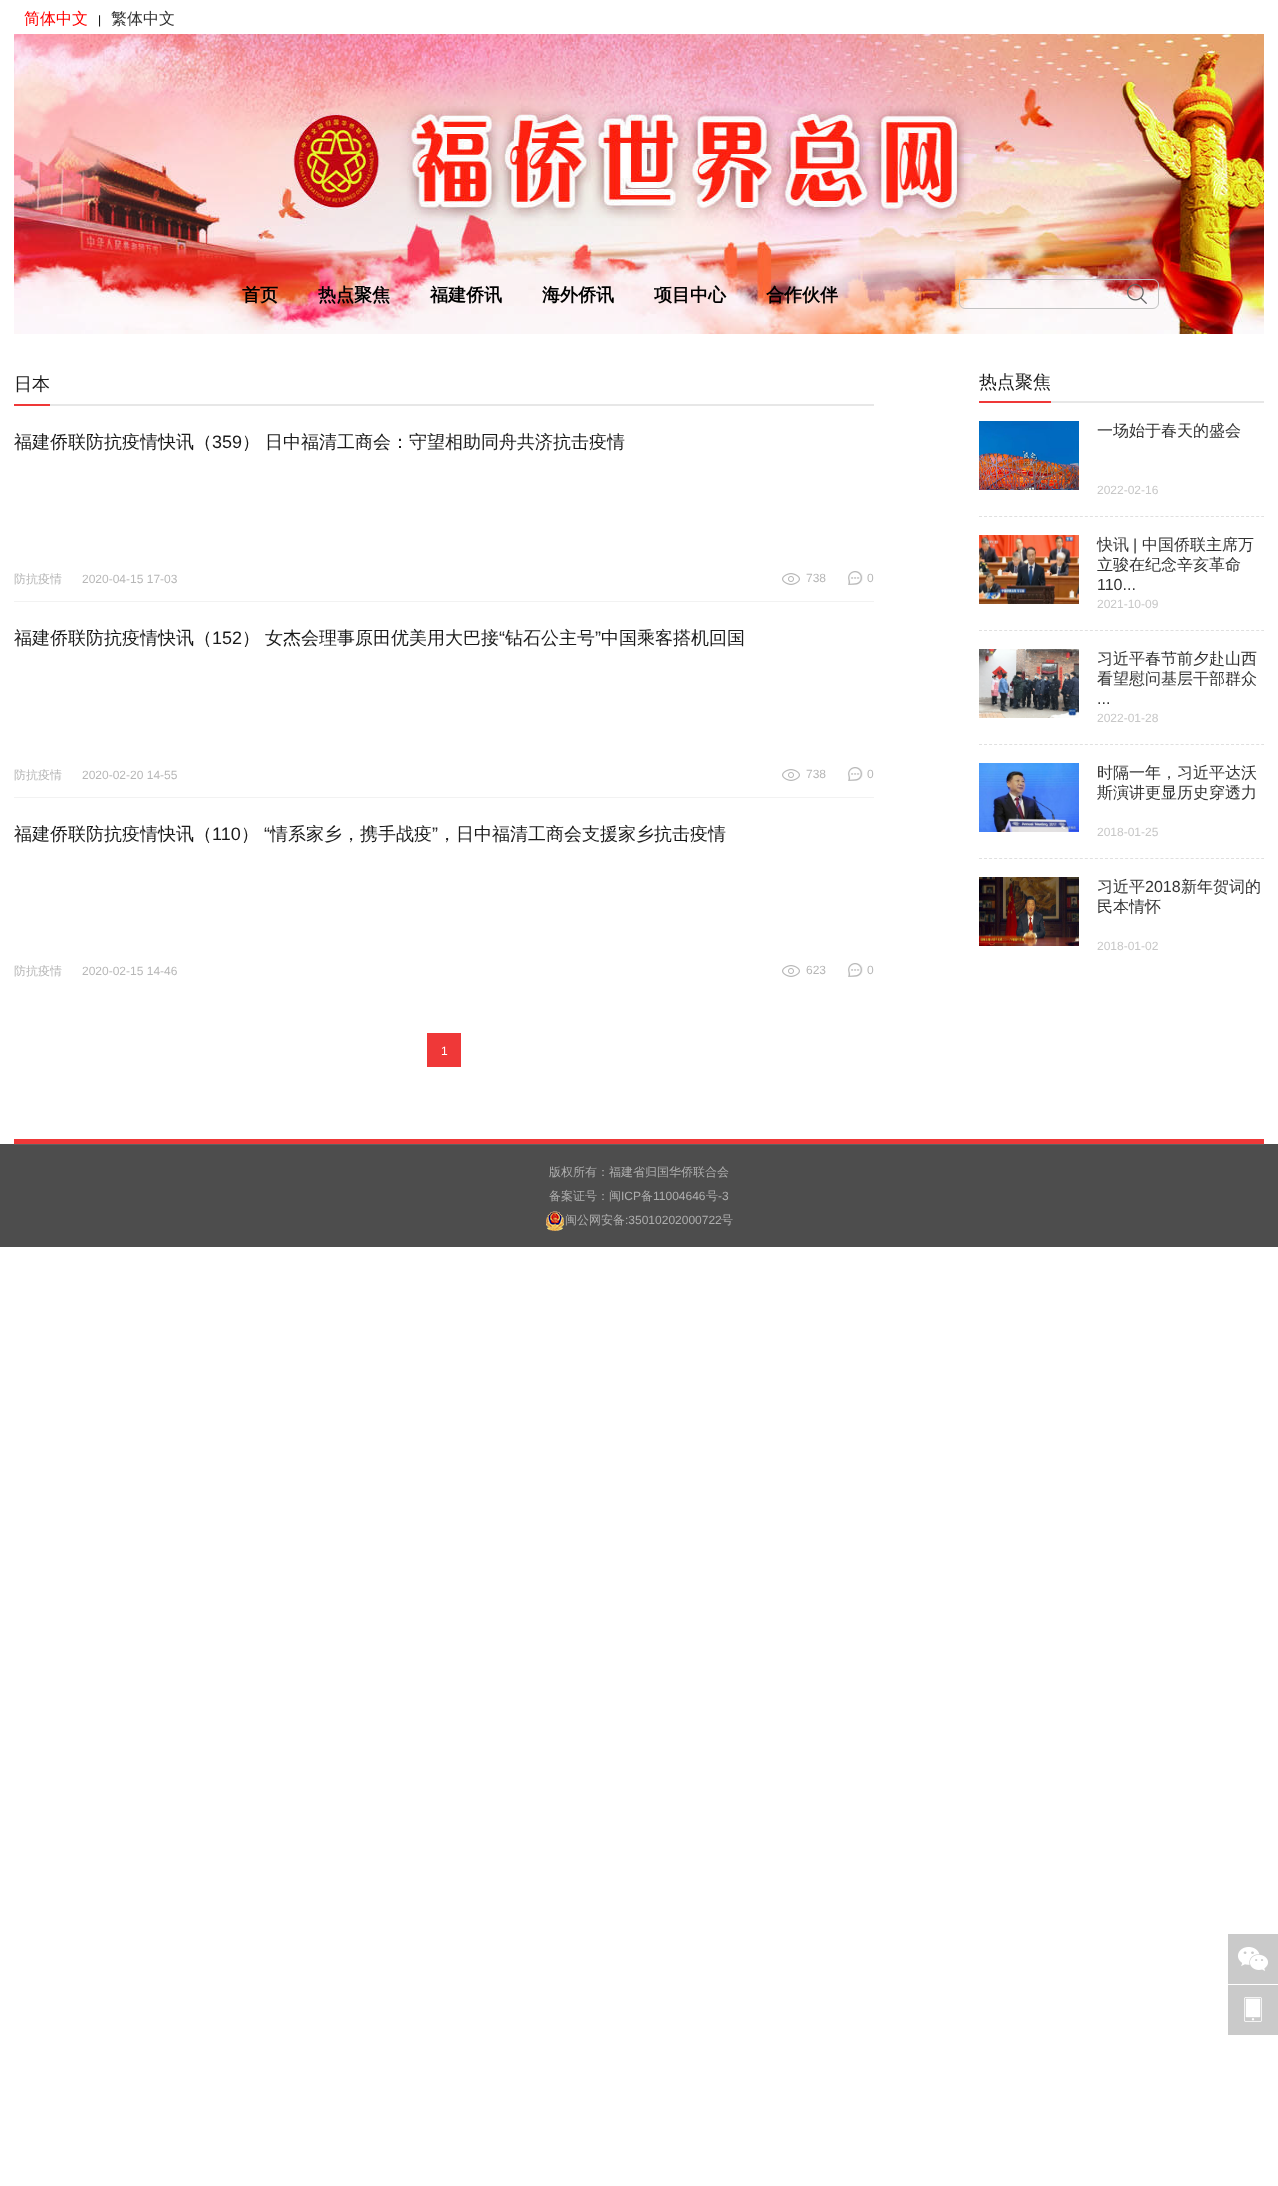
<!DOCTYPE html>
<meta charset="utf-8">
<style>body { margin: 0 } canvas { display: block }</style>
<canvas id="canvas" width="1278" height="2186"></canvas>
<script type="module">
  const canvas = document.getElementById("canvas");
  const g = canvas.getContext("2d");
  g.miterLimit = 4;
  g.fontKerning = "normal";
  function drawText(s, x, y, [font, color]) {
    g.font = font;
    g.fillStyle = color;
    g.fillText(s, x, y);
  }
  function fillBox(x, y, w, h, color) {
    g.fillStyle = color;
    g.fillRect(x, y, w, h);
  }
  async function drawPicture(src, x, y, w, h) {
    const img = new Image();
    img.src = src;
    await img.decode();
    g.drawImage(img, x, y, w, h);
  }

  const s1 = ["500 16px WenQuanYi Zen Hei", "#FF0000"];
  const s2 = ["12px Liberation Sans", "#000000"];
  const s3 = ["500 16px WenQuanYi Zen Hei", "#333333"];
  const s4 = ["bold 18px WenQuanYi Zen Hei", "#000000"];
  const s5 = ["500 18px WenQuanYi Zen Hei", "#1A1A1A"];
  const s6 = ["18px Liberation Sans", "#1A1A1A"];
  const s7 = ["500 12px WenQuanYi Zen Hei", "#B7B7B7"];
  const s8 = ["12px Liberation Sans", "#B7B7B7"];
  const s9 = ["12px Liberation Sans", "#FFFFFF"];
  const s10 = ["12px Liberation Sans", "#C7C7C7"];
  const s11 = ["16px Liberation Sans", "#333333"];
  const s12 = ["500 12px WenQuanYi Zen Hei", "#AEAEAE"];
  const s13 = ["12px Liberation Sans", "#AEAEAE"];

  fillBox(0, 0, 1278, 2186, "#FFFFFF");
  drawText("简体中文", 24, 24, s1);
  drawText("|", 98, 24, s2);
  drawText("繁体中文", 111, 24, s3);
  await drawPicture("pic1.png", 14, 34, 1250, 300);
  drawText("首页", 242, 301, s4);
  drawText("热点聚焦", 318, 301, s4);
  drawText("福建侨讯", 430, 301, s4);
  drawText("海外侨讯", 542, 301, s4);
  drawText("项目中心", 654, 301, s4);
  drawText("合作伙伴", 766, 301, s4);
  g.beginPath();
  g.roundRect(959.5, 279.5, 199, 29, 5.5);
  g.strokeStyle = "#C2C2C2";
  g.stroke();
  await drawPicture("pic2.png", 1127, 284, 20, 20);
  fillBox(14, 1139, 1250, 5, "#EF3838");
  fillBox(50, 404, 824, 2, "#E7E7E7");
  drawText("日本", 14, 390, s5);
  fillBox(14, 404, 36, 2, "#EF3838");
  drawText("福建侨联防抗疫情快讯（", 14, 448, s5);
  drawText("359", 212, 448, s6);
  drawText("）", 242, 448, s5);
  drawText("日中福清工商会：守望相助同舟共济抗击疫情", 265, 448, s5);
  drawText("防抗疫情", 14, 583, s7);
  drawText("2020-04-15 17-03", 82, 583, s8);
  await drawPicture("pic3.png", 782, 573, 18, 12);
  drawText("738", 806, 582, s8);
  await drawPicture("pic4.png", 848, 571, 15, 14);
  drawText("0", 867, 582, s8);
  fillBox(14, 601, 860, 1, "#F2F2F2");
  drawText("福建侨联防抗疫情快讯（", 14, 644, s5);
  drawText("152", 212, 644, s6);
  drawText("）", 242, 644, s5);
  drawText("女杰会理事原田优美用大巴接", 265, 644, s5);
  drawText("“", 499, 644, s6);
  drawText("钻石公主号", 505, 644, s5);
  drawText("”", 595, 644, s6);
  drawText("中国乘客搭机回国", 601, 644, s5);
  drawText("防抗疫情", 14, 779, s7);
  drawText("2020-02-20 14-55", 82, 779, s8);
  await drawPicture("pic3.png", 782, 769, 18, 12);
  drawText("738", 806, 778, s8);
  await drawPicture("pic4.png", 848, 767, 15, 14);
  drawText("0", 867, 778, s8);
  fillBox(14, 797, 860, 1, "#F2F2F2");
  drawText("福建侨联防抗疫情快讯（", 14, 840, s5);
  drawText("110", 212, 840, s6);
  drawText("）", 241, 840, s5);
  drawText("“", 264, 840, s6);
  drawText("情系家乡，携手战疫", 270, 840, s5);
  drawText("”", 432, 840, s6);
  drawText("，日中福清工商会支援家乡抗击疫情", 438, 840, s5);
  drawText("防抗疫情", 14, 975, s7);
  drawText("2020-02-15 14-46", 82, 975, s8);
  await drawPicture("pic3.png", 782, 965, 18, 12);
  drawText("623", 806, 974, s8);
  await drawPicture("pic4.png", 848, 963, 15, 14);
  drawText("0", 867, 974, s8);
  fillBox(427, 1033, 34, 34, "#EF3838");
  drawText("1", 441, 1055, s9);
  fillBox(1051, 401, 213, 2, "#E7E7E7");
  drawText("热点聚焦", 979, 388, s5);
  fillBox(979, 401, 72, 2, "#EF3838");
  await drawPicture("pic5.png", 979, 421, 100, 69);
  drawText("一场始于春天的盛会", 1097, 436, s3);
  drawText("2022-02-16", 1097, 494, s10);
  g.beginPath();
  g.moveTo(979, 516.5);
  g.lineTo(1264, 516.5);
  g.strokeStyle = "#E0E0E0";
  g.setLineDash([3, 2.04]);
  g.stroke();
  await drawPicture("pic6.png", 979, 535, 100, 69);
  drawText("快讯", 1097, 550, s3);
  drawText("|", 1133, 550, s11);
  drawText("中国侨联主席万", 1142, 550, s3);
  drawText("立骏在纪念辛亥革命", 1097, 570, s3);
  drawText("110...", 1097, 590, s11);
  drawText("2021-10-09", 1097, 608, s10);
  g.beginPath();
  g.moveTo(979, 630.5);
  g.lineTo(1264, 630.5);
  g.stroke();
  await drawPicture("pic7.png", 979, 649, 100, 69);
  drawText("习近平春节前夕赴山西", 1097, 664, s3);
  drawText("看望慰问基层干部群众", 1097, 684, s3);
  drawText("...", 1097, 704, s11);
  drawText("2022-01-28", 1097, 722, s10);
  g.beginPath();
  g.moveTo(979, 744.5);
  g.lineTo(1264, 744.5);
  g.stroke();
  await drawPicture("pic8.png", 979, 763, 100, 69);
  drawText("时隔一年，习近平达沃", 1097, 778, s3);
  drawText("斯演讲更显历史穿透力", 1097, 798, s3);
  drawText("2018-01-25", 1097, 836, s10);
  g.beginPath();
  g.moveTo(979, 858.5);
  g.lineTo(1264, 858.5);
  g.stroke();
  await drawPicture("pic9.png", 979, 877, 100, 69);
  drawText("习近平", 1097, 892, s3);
  drawText("2018", 1145, 892, s11);
  drawText("新年贺词的", 1181, 892, s3);
  drawText("民本情怀", 1097, 912, s3);
  drawText("2018-01-02", 1097, 950, s10);
  fillBox(0, 1144, 1278, 103, "#4D4D4D");
  fillBox(14, 1144, 1250, 1, "#5F5F5F");
  drawText("版权所有：福建省归国华侨联合会", 549, 1176, s12);
  drawText("备案证号：闽", 549, 1200, s12);
  drawText("ICP", 621, 1200, s13);
  drawText("备", 641, 1200, s12);
  drawText("11004646", 653, 1200, s13);
  drawText("号", 706, 1200, s12);
  drawText("-3", 718, 1200, s13);
  await drawPicture("pic10.png", 546, 1211, 18, 20);
  drawText("闽公网安备", 565, 1224, s12);
  drawText(":35010202000722", 625, 1224, s13);
  drawText("号", 721, 1224, s12);
  fillBox(1228, 1934, 50, 50, "#CACACA");
  await drawPicture("pic11.png", 1238, 1947, 30, 24);
  fillBox(1228, 1985, 50, 50, "#CACACA");
  await drawPicture("pic12.png", 1244, 1997, 18, 25);
</script>
